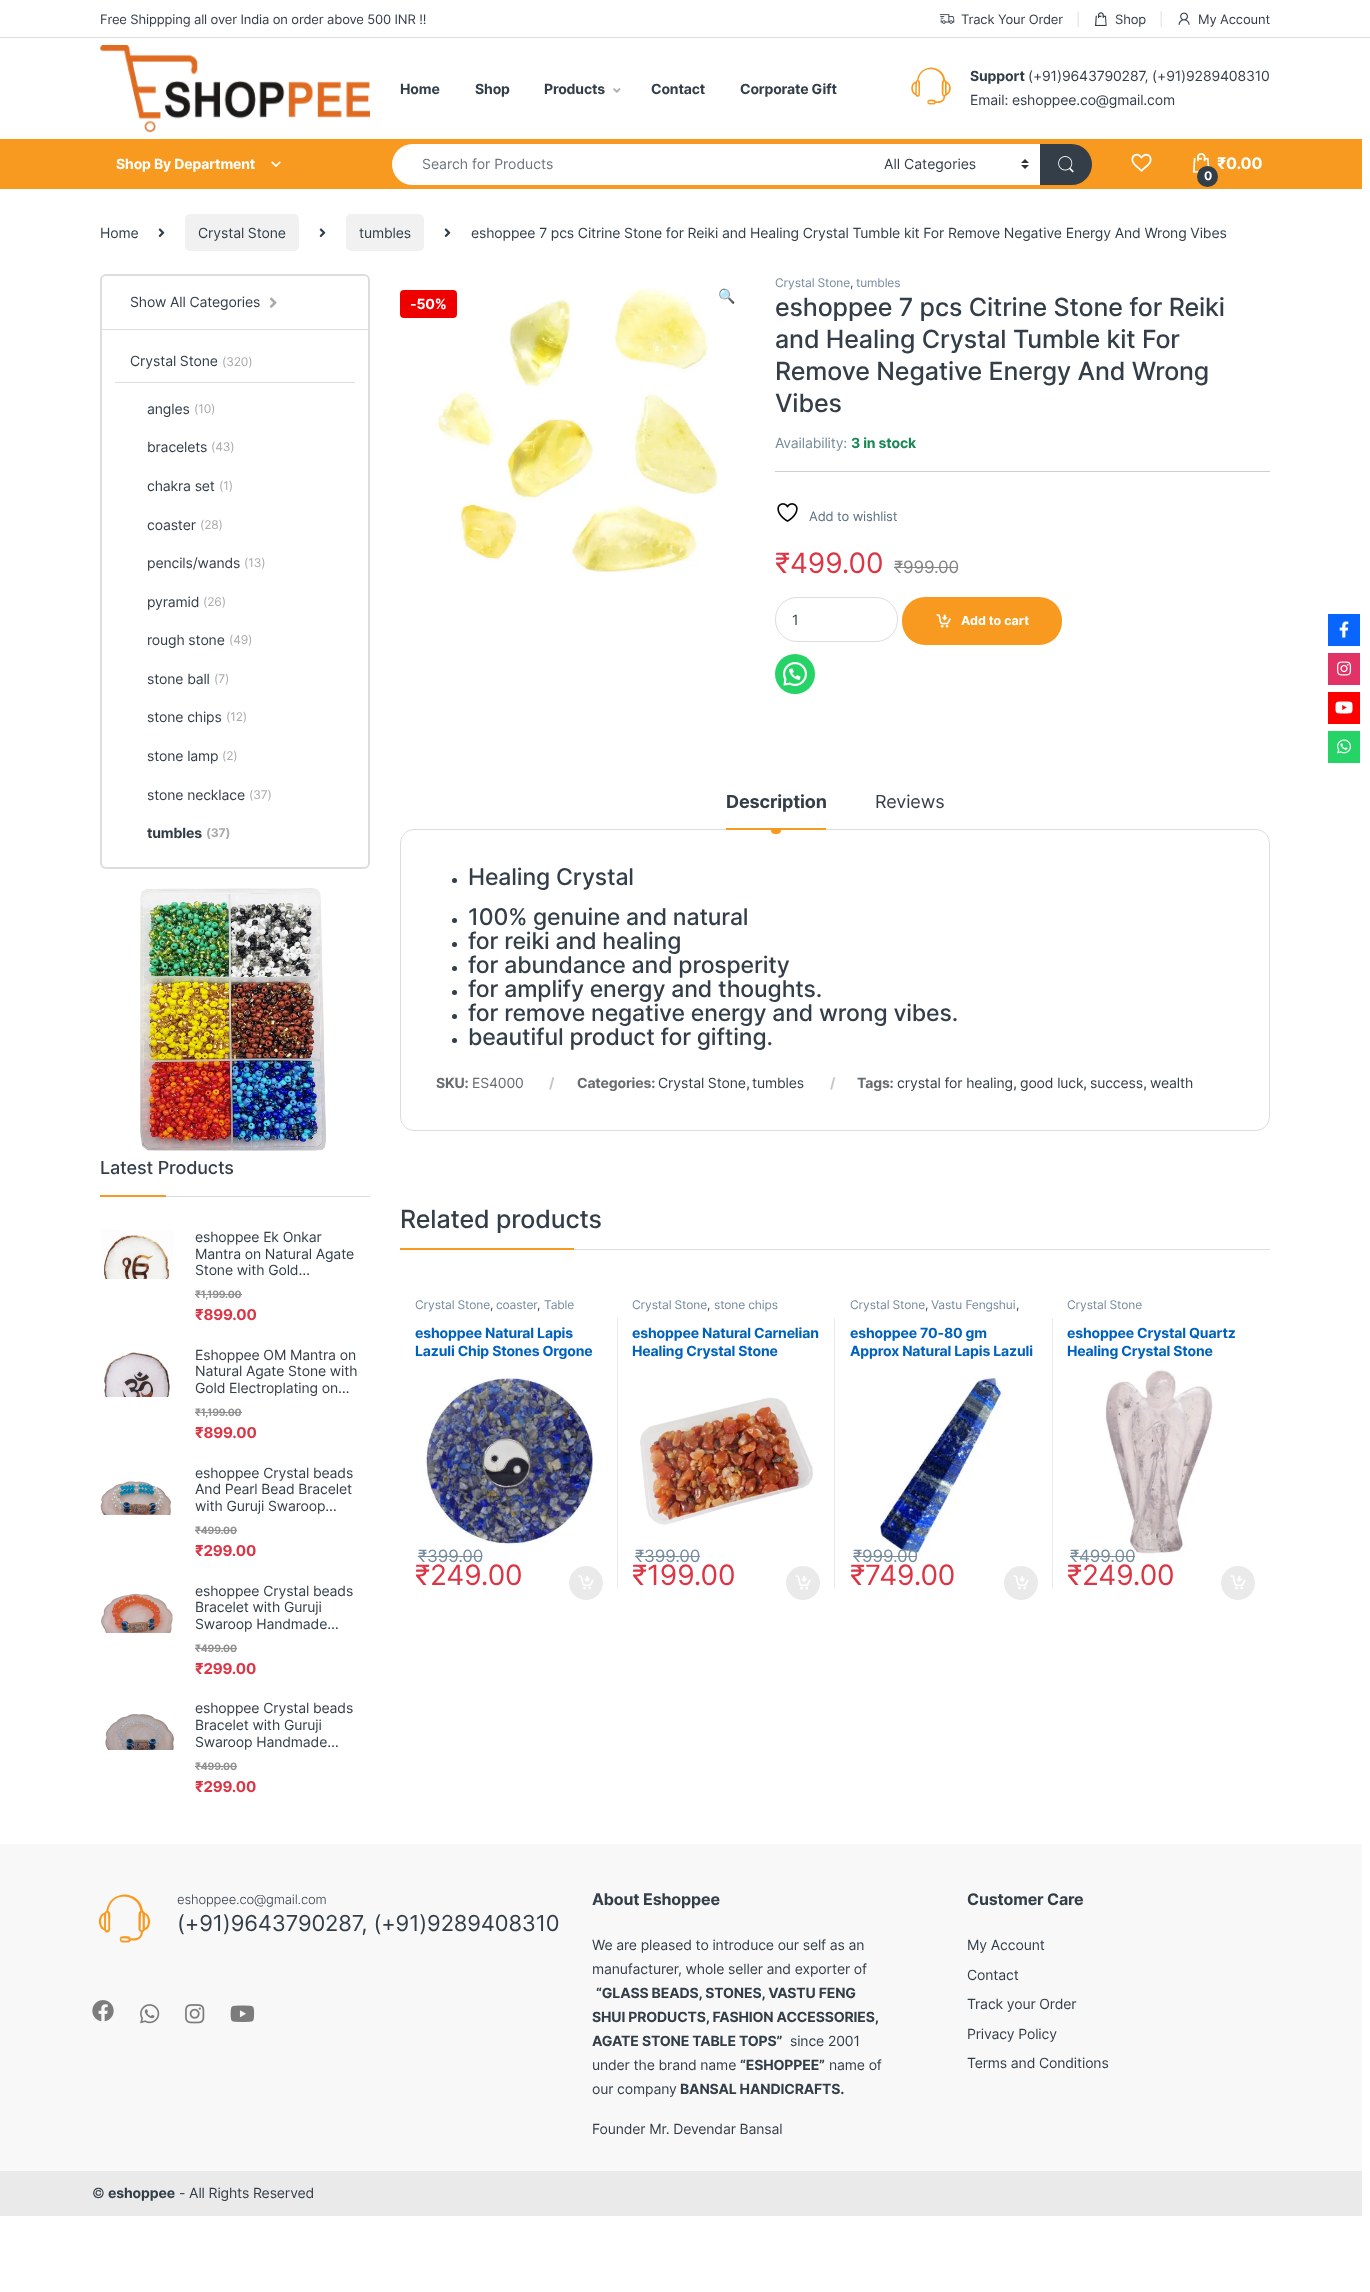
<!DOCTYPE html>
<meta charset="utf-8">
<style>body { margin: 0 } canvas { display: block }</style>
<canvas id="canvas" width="1370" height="2292"></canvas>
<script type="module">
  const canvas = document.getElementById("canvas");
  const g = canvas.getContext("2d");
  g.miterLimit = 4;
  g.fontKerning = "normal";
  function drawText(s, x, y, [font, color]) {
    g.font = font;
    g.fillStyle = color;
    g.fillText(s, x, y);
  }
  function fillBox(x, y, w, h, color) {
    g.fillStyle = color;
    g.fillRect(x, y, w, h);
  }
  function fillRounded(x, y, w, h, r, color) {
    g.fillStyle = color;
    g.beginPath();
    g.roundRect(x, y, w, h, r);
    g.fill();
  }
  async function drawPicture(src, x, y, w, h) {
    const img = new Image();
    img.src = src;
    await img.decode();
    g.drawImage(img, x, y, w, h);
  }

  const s1 = ["13px Inter", "#333E48"];
  const s2 = ["13px Inter", "#DDDDDD"];
  const s3 = ["bold 14px Inter", "#333E48"];
  const s4 = ["14px Inter", "#333E48"];
  const s5 = ["bold 14px Inter", "#FFFFFF"];
  const s6 = ["14px Inter", "#6C757D"];
  const s7 = ["bold 16px Inter", "#FFFFFF"];
  const s8 = ["bold 12px Inter", "#FFFFFF"];
  const s9 = ["12px Inter", "#AAAAAA"];
  const s10 = ["bold 12px Inter", "#AAAAAA"];
  const s11 = ["500 18px Inter", "#333E48"];
  const s12 = ["bold 10.25px Inter", "#8F8F8F"];
  const s13 = ["bold 15px Inter", "#DC3545"];
  const s14 = ["14px Noto Color Emoji", "#333E48"];
  const s15 = ["12px Inter", "#768B9E"];
  const s16 = ["12px Inter", "#333E48"];
  const s17 = ["500 25px Inter", "#333E48"];
  const s18 = ["14px Inter", "#768B9E"];
  const s19 = ["bold 14px Inter", "#198754"];
  const s20 = ["13px Inter", "#5D7184"];
  const s21 = ["28px Inter", "#DC3545"];
  const s22 = ["17px Inter", "#848484"];
  const s23 = ["bold 12.5px Inter", "#FFFFFF"];
  const s24 = ["bold 18px Inter", "#333E48"];
  const s25 = ["18px Inter", "#333E48"];
  const s26 = ["500 23px Inter", "#333E48"];
  const s27 = ["bold 14px Inter", "#686C6F"];
  const s28 = ["14px Inter", "#686C6F"];
  const s29 = ["bold 14px Inter", "#C5C5C5"];
  const s30 = ["bold 14px Inter", "#0062BD"];
  const s31 = ["17px Inter", "#768B9E"];
  const s32 = ["300 13px Inter", "#333E48"];
  const s33 = ["22px Inter", "#333E48"];
  const s34 = ["bold 16px Inter", "#333E48"];

  fillBox(0, 0, 1370, 2292, "#FFFFFF");
  fillBox(0, 37, 1370, 1, "#DDDDDD");
  g.letterSpacing = "-0.14px";
  drawText("Free Shippping all over India on order above 500 INR !!", 100, 24, s1);
  await drawPicture("pic1.png", 939, 14, 16, 10);
  drawText("Track Your Order", 961, 24, s1);
  drawText("|", 1076, 24, s2);
  await drawPicture("pic2.png", 1095, 12, 12, 14);
  drawText("Shop", 1115, 24, s1);
  drawText("|", 1159, 24, s2);
  await drawPicture("pic3.png", 1178, 12, 12, 13);
  drawText("My Account", 1198, 24, s1);
  await drawPicture("pic4.png", 100, 45, 270, 88);
  drawText("Home", 400, 94, s3);
  drawText("Shop", 475, 94, s3);
  drawText("Products", 544, 94, s3);
  await drawPicture("pic5.png", 613, 88, 8, 5);
  drawText("Contact", 651, 94, s3);
  drawText("Corporate Gift", 740, 94, s3);
  await drawPicture("pic6.png", 911, 67, 40, 38);
  drawText("Support", 970, 81, s3);
  drawText("(+91)9643790287, (+91)9289408310", 1028, 81, s4);
  drawText("Email: eshoppee.co@gmail.com", 970, 105, s4);
  fillBox(0, 139, 1362, 50, "#F89A20");
  drawText("Shop By Department", 116, 169, s5);
  await drawPicture("pic7.png", 271, 161, 10, 6);
  g.beginPath();
  g.roundRect(392, 144, 481, 41, [20.5, 0, 0, 20.5]);
  g.fill();
  g.letterSpacing = "0px";
  drawText("Search for Products", 422, 169, s6);
  fillBox(873, 144, 167, 41, "#FFFFFF");
  await drawPicture("pic8.png", 1021, 159, 8, 10);
  drawText("All Categories", 884, 169, s4);
  g.beginPath();
  g.roundRect(1040, 144, 52, 41, [0, 20.5, 20.5, 0]);
  g.fill();
  await drawPicture("pic9.png", 1058, 156, 16, 17);
  await drawPicture("pic10.png", 1131, 153, 21, 19);
  await drawPicture("pic11.png", 1192, 153, 18, 20);
  g.letterSpacing = "-0.14px";
  drawText("₹0.00", 1217, 169, s7);
  g.fillStyle = "#333E48";
  g.beginPath();
  g.arc(1207.5, 176.5, 10.5, 0, Math.PI * 2);
  g.fill();
  drawText("0", 1204, 180, s8);
  drawText("Home", 100, 238, s4);
  await drawPicture("pic12.png", 158, 228, 7, 10);
  fillRounded(185, 214, 114, 37, 5, "#F1F1F1");
  drawText("Crystal Stone", 198, 238, s4);
  await drawPicture("pic12.png", 319, 228, 7, 10);
  fillRounded(346, 214, 78, 37, 5, "#F1F1F1");
  drawText("tumbles", 359, 238, s4);
  await drawPicture("pic12.png", 444, 228, 7, 10);
  drawText("eshoppee 7 pcs Citrine Stone for Reiki and Healing Crystal Tumble kit For Remove Negative Energy And Wrong Vibes", 471, 238, s4);
  g.beginPath();
  g.roundRect(101, 275, 268, 593, 5);
  g.strokeStyle = "#DDDDDD";
  g.lineWidth = 2;
  g.stroke();
  fillBox(102, 329, 266, 1, "#DDDDDD");
  drawText("Show All Categories", 130, 307, s4);
  await drawPicture("pic13.png", 269, 297, 8, 11);
  drawText("Crystal Stone", 130, 366, s4);
  drawText("(320)", 222, 366, s9);
  fillBox(115, 382, 240, 1, "#DDDDDD");
  drawText("angles", 147, 414, s4);
  drawText("(10)", 194, 413, s9);
  drawText("bracelets", 147, 452, s4);
  drawText("(43)", 211, 451, s9);
  drawText("chakra set", 147, 491, s4);
  drawText("(1)", 219, 490, s9);
  drawText("coaster", 147, 530, s4);
  drawText("(28)", 200, 529, s9);
  drawText("pencils/wands", 147, 568, s4);
  drawText("(13)", 244, 567, s9);
  drawText("pyramid", 147, 607, s4);
  drawText("(26)", 203, 606, s9);
  drawText("rough stone", 147, 645, s4);
  drawText("(49)", 229, 644, s9);
  drawText("stone ball", 147, 684, s4);
  drawText("(7)", 214, 683, s9);
  drawText("stone chips", 147, 722, s4);
  drawText("(12)", 226, 721, s9);
  drawText("stone lamp", 147, 761, s4);
  drawText("(2)", 222, 760, s9);
  drawText("stone necklace", 147, 800, s4);
  drawText("(37)", 249, 799, s9);
  drawText("tumbles", 147, 838, s3);
  drawText("(37)", 206, 837, s10);
  await drawPicture("pic14.png", 140, 888, 186, 263);
  fillBox(166, 1196, 204, 1, "#DDDDDD");
  drawText("Latest Products", 100, 1174, s11);
  fillBox(100, 1195, 66, 2, "#F89A20");
  await drawPicture("pic15.png", 102, 1230, 71, 49);
  drawText("eshoppee Ek Onkar", 195, 1242, s4);
  drawText("Mantra on Natural Agate", 195, 1259, s4);
  drawText("Stone with Gold…", 195, 1275, s4);
  drawText("₹1,199.00", 195, 1298, s12);
  fillBox(195, 1294, 47, 1, "#8F8F8F");
  drawText("₹899.00", 195, 1320, s13);
  await drawPicture("pic16.png", 104, 1351, 66, 46);
  drawText("Eshoppee OM Mantra on", 195, 1360, s4);
  drawText("Natural Agate Stone with", 195, 1376, s4);
  drawText("Gold Electroplating on…", 195, 1393, s4);
  drawText("₹1,199.00", 195, 1416, s12);
  fillBox(195, 1412, 47, 1, "#8F8F8F");
  drawText("₹899.00", 195, 1438, s13);
  await drawPicture("pic17.png", 100, 1481, 72, 34);
  drawText("eshoppee Crystal beads", 195, 1478, s4);
  drawText("And Pearl Bead Bracelet", 195, 1494, s4);
  drawText("with Guruji Swaroop…", 195, 1511, s4);
  drawText("₹499.00", 195, 1534, s12);
  fillBox(195, 1530, 42, 1, "#8F8F8F");
  drawText("₹299.00", 195, 1556, s13);
  await drawPicture("pic18.png", 101, 1593, 72, 40);
  drawText("eshoppee Crystal beads", 195, 1596, s4);
  drawText("Bracelet with Guruji", 195, 1612, s4);
  drawText("Swaroop Handmade…", 195, 1629, s4);
  drawText("₹499.00", 195, 1652, s12);
  fillBox(195, 1648, 42, 1, "#8F8F8F");
  drawText("₹299.00", 195, 1674, s13);
  await drawPicture("pic19.png", 105, 1714, 69, 36);
  drawText("eshoppee Crystal beads", 195, 1713, s4);
  drawText("Bracelet with Guruji", 195, 1730, s4);
  drawText("Swaroop Handmade…", 195, 1747, s4);
  drawText("₹499.00", 195, 1770, s12);
  fillBox(195, 1766, 42, 1, "#8F8F8F");
  drawText("₹299.00", 195, 1792, s13);
  await drawPicture("pic20.png", 438, 287, 282, 286);
  fillRounded(400, 290, 57, 28, 4, "#EE0000");
  drawText("-50%", 410, 309, s5);
  drawText("🔍", 718, 301, s14);
  drawText("Crystal Stone", 775, 287, s15);
  drawText(",", 850, 287, s16);
  drawText("tumbles", 856, 287, s15);
  drawText("eshoppee 7 pcs Citrine Stone for Reiki", 775, 316, s17);
  drawText("and Healing Crystal Tumble kit For", 775, 348, s17);
  drawText("Remove Negative Energy And Wrong", 775, 380, s17);
  drawText("Vibes", 775, 412, s17);
  drawText("Availability:", 775, 448, s18);
  drawText("3 in stock", 851, 448, s19);
  fillBox(775, 471, 495, 1, "#CCCFD1");
  await drawPicture("pic21.png", 777, 503, 21, 19);
  drawText("Add to wishlist", 809, 521, s20);
  drawText("₹499.00", 775, 573, s21);
  drawText("₹999.00", 894, 573, s22);
  fillBox(894, 567, 64, 1, "#848484");
  g.beginPath();
  g.roundRect(775.5, 597.5, 122, 44, 21.5);
  g.lineWidth = 1;
  g.stroke();
  g.letterSpacing = "0px";
  drawText("1", 792, 625, s4);
  fillRounded(902, 597, 160, 48, 23, "#F89A20");
  await drawPicture("pic22.png", 936, 614, 15, 14);
  drawText("Add to cart", 961, 625, s23);
  g.fillStyle = "#25D366";
  g.beginPath();
  g.arc(795, 674, 20, 0, Math.PI * 2);
  g.fill();
  await drawPicture("pic23.png", 783, 662, 24, 24);
  g.letterSpacing = "-0.14px";
  drawText("Description", 726, 808, s24);
  g.beginPath();
  g.roundRect(400.5, 829.5, 869, 301, 13.5);
  g.stroke();
  fillBox(726, 828, 100, 2, "#F89A20");
  g.beginPath();
  g.roundRect(771, 830, 10, 4, [0, 0, 4, 4]);
  g.fill();
  drawText("Reviews", 875, 808, s25);
  g.beginPath();
  g.arc(454.5, 880.5, 2.5, 0, Math.PI * 2);
  g.fill();
  drawText("Healing Crystal", 468, 885, s26);
  g.beginPath();
  g.arc(454.5, 920.5, 2.5, 0, Math.PI * 2);
  g.fill();
  drawText("100% genuine and natural", 468, 925, s26);
  g.beginPath();
  g.arc(454.5, 944.5, 2.5, 0, Math.PI * 2);
  g.fill();
  drawText("for reiki and healing", 468, 949, s26);
  g.beginPath();
  g.arc(454.5, 968.5, 2.5, 0, Math.PI * 2);
  g.fill();
  drawText("for abundance and prosperity", 468, 973, s26);
  g.beginPath();
  g.arc(454.5, 992.5, 2.5, 0, Math.PI * 2);
  g.fill();
  drawText("for amplify energy and thoughts.", 468, 997, s26);
  g.beginPath();
  g.arc(454.5, 1016.5, 2.5, 0, Math.PI * 2);
  g.fill();
  drawText("for remove negative energy and wrong vibes.", 468, 1021, s26);
  g.beginPath();
  g.arc(454.5, 1040.5, 2.5, 0, Math.PI * 2);
  g.fill();
  drawText("beautiful product for gifting.", 468, 1045, s26);
  drawText("SKU:", 436, 1088, s27);
  drawText("ES4000", 472, 1088, s28);
  drawText("/", 549, 1088, s29);
  drawText("Categories:", 577, 1088, s27);
  drawText("Crystal Stone", 658, 1088, s4);
  drawText(",", 746, 1088, s27);
  drawText("tumbles", 752, 1088, s4);
  drawText("/", 830, 1088, s29);
  drawText("Tags:", 857, 1088, s27);
  drawText("crystal for healing", 897, 1088, s4);
  drawText(",", 1013, 1088, s27);
  drawText("good luck", 1020, 1088, s4);
  drawText(",", 1083, 1088, s27);
  drawText("success", 1090, 1088, s4);
  drawText(",", 1143, 1088, s27);
  drawText("wealth", 1150, 1088, s4);
  fillBox(574, 1249, 696, 1, "#DDDDDD");
  drawText("Related products", 400, 1228, s17);
  fillBox(400, 1248, 174, 2, "#F89A20");
  drawText("Crystal Stone", 415, 1309, s15);
  drawText(",", 490, 1309, s16);
  drawText("coaster", 496, 1309, s15);
  drawText(",", 537, 1309, s16);
  drawText("Table", 544, 1309, s15);
  drawText("eshoppee Natural Lapis", 415, 1338, s30);
  drawText("Lazuli Chip Stones Orgone", 415, 1356, s30);
  await drawPicture("pic24.png", 425, 1378, 170, 168);
  drawText("₹399.00", 418, 1562, s31);
  fillBox(418, 1556, 64, 1, "#768B9E");
  drawText("₹249.00", 415, 1585, s21);
  g.fillStyle = "#EAEAEA";
  g.beginPath();
  g.arc(586, 1583, 17, 0, Math.PI * 2);
  g.fill();
  await drawPicture("pic25.png", 578, 1575, 16, 15);
  fillBox(617, 1318, 1, 271, "#EAEAEA");
  drawText("Crystal Stone", 632, 1309, s15);
  drawText(",", 707, 1309, s16);
  drawText("stone chips", 714, 1309, s15);
  drawText("eshoppee Natural Carnelian", 632, 1338, s30);
  drawText("Healing Crystal Stone", 632, 1356, s30);
  await drawPicture("pic26.png", 640, 1397, 173, 128);
  drawText("₹399.00", 635, 1562, s31);
  fillBox(635, 1556, 65, 1, "#768B9E");
  drawText("₹199.00", 632, 1585, s21);
  g.fillStyle = "#EAEAEA";
  g.beginPath();
  g.arc(803, 1583, 17, 0, Math.PI * 2);
  g.fill();
  await drawPicture("pic25.png", 795, 1575, 16, 15);
  fillBox(834, 1318, 1, 271, "#EAEAEA");
  drawText("Crystal Stone", 850, 1309, s15);
  drawText(",", 925, 1309, s16);
  drawText("Vastu Fengshui", 931, 1309, s15);
  drawText(",", 1016, 1309, s16);
  drawText("eshoppee 70-80 gm", 850, 1338, s30);
  drawText("Approx Natural Lapis Lazuli", 850, 1356, s30);
  await drawPicture("pic27.png", 880, 1378, 126, 175);
  drawText("₹999.00", 853, 1562, s31);
  fillBox(853, 1556, 64, 1, "#768B9E");
  drawText("₹749.00", 850, 1585, s21);
  g.fillStyle = "#EAEAEA";
  g.beginPath();
  g.arc(1021, 1583, 17, 0, Math.PI * 2);
  g.fill();
  await drawPicture("pic25.png", 1013, 1575, 16, 15);
  fillBox(1052, 1318, 1, 271, "#EAEAEA");
  drawText("Crystal Stone", 1067, 1309, s15);
  drawText("eshoppee Crystal Quartz", 1067, 1338, s30);
  drawText("Healing Crystal Stone", 1067, 1356, s30);
  await drawPicture("pic28.png", 1105, 1370, 108, 185);
  drawText("₹499.00", 1070, 1562, s31);
  fillBox(1070, 1556, 65, 1, "#768B9E");
  drawText("₹249.00", 1067, 1585, s21);
  g.fillStyle = "#EAEAEA";
  g.beginPath();
  g.arc(1238, 1583, 17, 0, Math.PI * 2);
  g.fill();
  await drawPicture("pic25.png", 1230, 1575, 16, 15);
  fillBox(0, 1844, 1362, 327, "#F8F8F8");
  await drawPicture("pic29.png", 98, 1894, 53, 49);
  drawText("eshoppee.co@gmail.com", 177, 1904, s32);
  drawText("(+91)9643790287, (+91)9289408310", 177, 1931, s33);
  await drawPicture("pic30.png", 92, 2000, 22, 22);
  await drawPicture("pic31.png", 140, 2004, 20, 20);
  await drawPicture("pic32.png", 185, 2004, 20, 20);
  await drawPicture("pic33.png", 230, 2005, 25, 17);
  drawText("About Eshoppee", 592, 1905, s34);
  drawText("We are pleased to introduce our self as an", 592, 1950, s4);
  drawText("manufacturer, whole seller and exporter of", 592, 1974, s4);
  drawText("“GLASS BEADS, STONES, VASTU FENG", 596, 1998, s3);
  drawText("SHUI PRODUCTS, FASHION ACCESSORIES,", 592, 2022, s3);
  drawText("AGATE STONE TABLE TOPS”", 592, 2046, s3);
  drawText("since 2001", 790, 2046, s4);
  drawText("under the brand name", 592, 2070, s4);
  drawText("“ESHOPPEE”", 740, 2070, s3);
  drawText("name of", 829, 2070, s4);
  drawText("our company", 592, 2094, s4);
  drawText("BANSAL HANDICRAFTS.", 680, 2094, s3);
  drawText("Founder Mr. Devendar Bansal", 592, 2134, s4);
  drawText("Customer Care", 967, 1905, s34);
  drawText("My Account", 967, 1950, s4);
  drawText("Contact", 967, 1980, s4);
  drawText("Track your Order", 967, 2009, s4);
  drawText("Privacy Policy", 967, 2039, s4);
  drawText("Terms and Conditions", 967, 2068, s4);
  fillBox(0, 2171, 1362, 45, "#EAEAEA");
  drawText("©", 92, 2198, s4);
  drawText("eshoppee", 108, 2198, s3);
  drawText("- All Rights Reserved", 179, 2198, s4);
  fillBox(1328, 614, 32, 32, "#0866FF");
  await drawPicture("pic34.png", 1339, 621, 10, 17);
  fillBox(1328, 653, 32, 32, "#E23367");
  await drawPicture("pic35.png", 1337, 661, 15, 15);
  fillBox(1328, 692, 32, 32, "#FF0000");
  await drawPicture("pic36.png", 1335, 701, 18, 13);
  fillBox(1328, 731, 32, 32, "#25D366");
  await drawPicture("pic37.png", 1337, 739, 14, 15);
</script>
